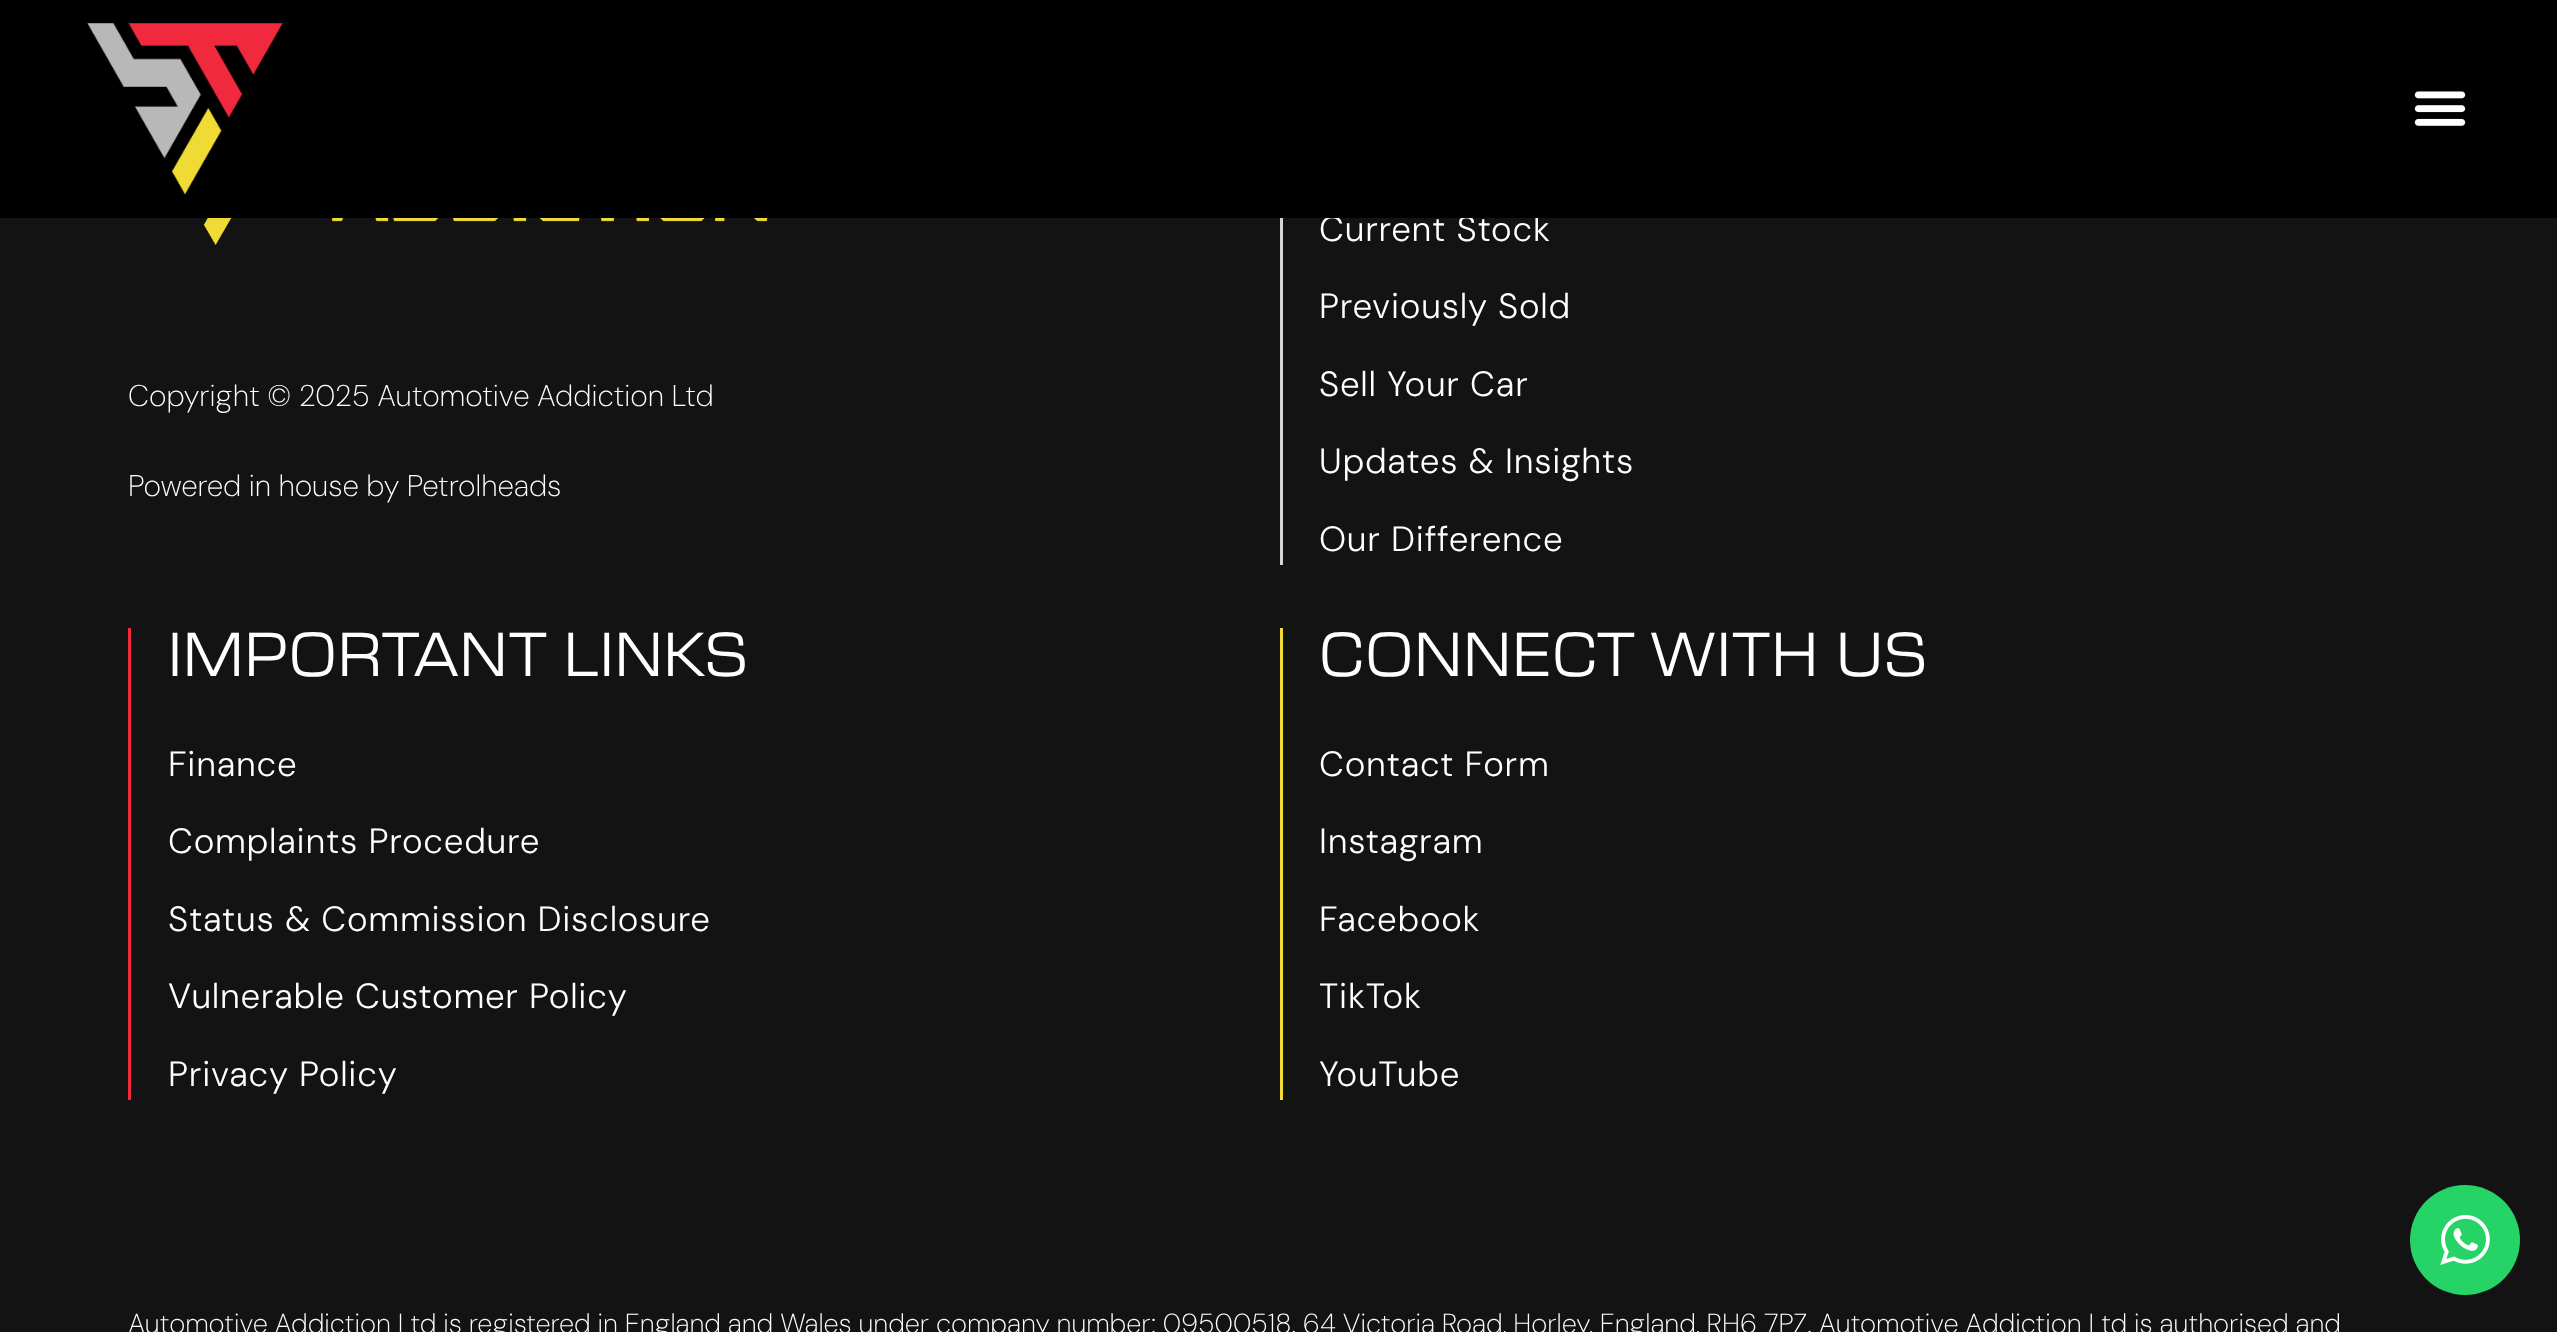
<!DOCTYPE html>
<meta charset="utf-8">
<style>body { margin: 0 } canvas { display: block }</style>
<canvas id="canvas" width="2557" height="1332"></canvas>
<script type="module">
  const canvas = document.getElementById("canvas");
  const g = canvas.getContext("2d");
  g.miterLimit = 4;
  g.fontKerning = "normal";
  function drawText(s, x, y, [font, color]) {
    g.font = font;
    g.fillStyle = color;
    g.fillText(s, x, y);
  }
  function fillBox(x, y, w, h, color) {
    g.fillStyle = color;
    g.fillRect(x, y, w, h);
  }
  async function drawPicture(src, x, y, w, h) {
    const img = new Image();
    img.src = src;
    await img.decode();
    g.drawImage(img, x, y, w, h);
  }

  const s1 = ["300 35px DM Sans", "#FFFFFF"];
  const s2 = ["200 30px DM Sans", "#FFFFFF"];
  const s3 = ["60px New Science", "#FFFFFF"];
  const s4 = ["200 27.5px DM Sans", "#FFFFFF"];

  fillBox(0, 0, 2557, 1332, "#131313");
  g.letterSpacing = "0.75px";
  drawText("Current Stock", 1319, 241, s1);
  fillBox(0, 0, 2557, 218, "#000000");
  await drawPicture("pic1.png", 87, 23, 196, 172);
  await drawPicture("pic2.png", 2414, 91, 52, 35);
  await drawPicture("pic3.png", 203, 218, 565, 27);
  g.letterSpacing = "0px";
  drawText("Copyright © 2025 Automotive Addiction Ltd", 128, 406, s2);
  drawText("Powered in house by Petrolheads", 128, 496, s2);
  fillBox(1280, 218, 3, 347, "#D4D4D4");
  g.letterSpacing = "0.75px";
  drawText("Previously Sold", 1319, 318, s1);
  drawText("Sell Your Car", 1319, 396, s1);
  drawText("Updates & Insights", 1319, 473, s1);
  drawText("Our Difference", 1319, 551, s1);
  fillBox(128, 628, 3, 472, "#F02A3C");
  g.letterSpacing = "1px";
  drawText("IMPORTANT LINKS", 168, 676, s3);
  g.letterSpacing = "0.75px";
  drawText("Finance", 168, 776, s1);
  drawText("Complaints Procedure", 168, 853, s1);
  drawText("Status & Commission Disclosure", 168, 931, s1);
  drawText("Vulnerable Customer Policy", 168, 1008, s1);
  drawText("Privacy Policy", 168, 1086, s1);
  fillBox(1280, 628, 3, 472, "#EFDB33");
  g.letterSpacing = "1px";
  drawText("CONNECT WITH US", 1319, 676, s3);
  g.letterSpacing = "0.75px";
  drawText("Contact Form", 1319, 776, s1);
  drawText("Instagram", 1319, 853, s1);
  drawText("Facebook", 1319, 931, s1);
  drawText("TikTok", 1319, 1008, s1);
  drawText("YouTube", 1319, 1086, s1);
  g.letterSpacing = "0px";
  drawText("Automotive Addiction Ltd is registered in England and Wales under company number: 09500518. 64 Victoria Road, Horley, England, RH6 7PZ. Automotive Addiction Ltd is authorised and", 128, 1333, s4);
  g.fillStyle = "#25D366";
  g.beginPath();
  g.arc(2465, 1240, 55, 0, Math.PI * 2);
  g.fill();
  await drawPicture("pic4.png", 2440, 1215, 50, 50);
</script>
